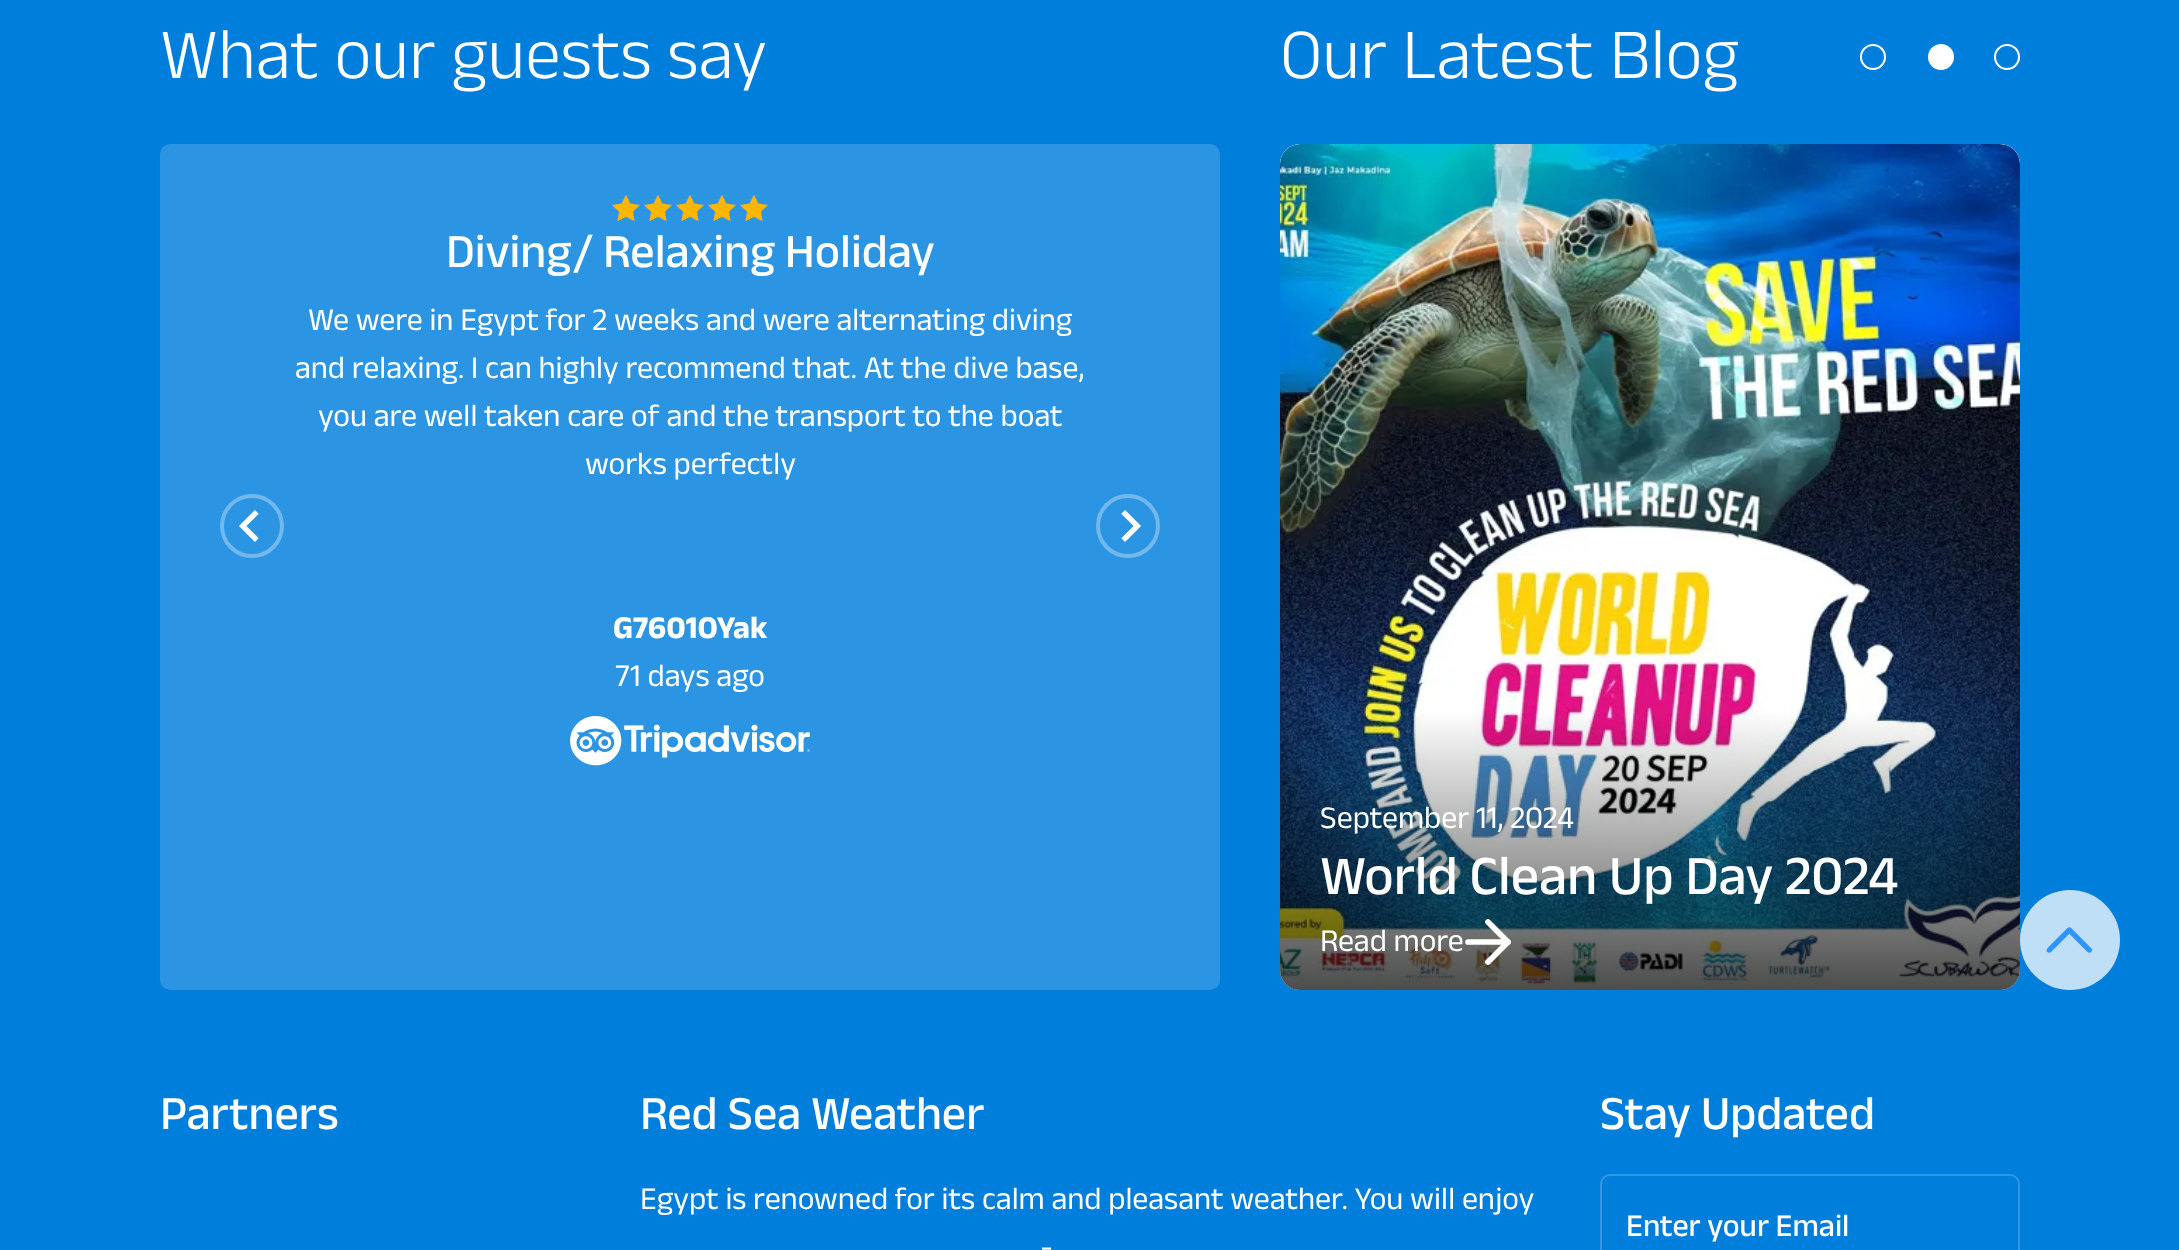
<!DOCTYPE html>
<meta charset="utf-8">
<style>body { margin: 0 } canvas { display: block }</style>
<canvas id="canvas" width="2179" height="1250"></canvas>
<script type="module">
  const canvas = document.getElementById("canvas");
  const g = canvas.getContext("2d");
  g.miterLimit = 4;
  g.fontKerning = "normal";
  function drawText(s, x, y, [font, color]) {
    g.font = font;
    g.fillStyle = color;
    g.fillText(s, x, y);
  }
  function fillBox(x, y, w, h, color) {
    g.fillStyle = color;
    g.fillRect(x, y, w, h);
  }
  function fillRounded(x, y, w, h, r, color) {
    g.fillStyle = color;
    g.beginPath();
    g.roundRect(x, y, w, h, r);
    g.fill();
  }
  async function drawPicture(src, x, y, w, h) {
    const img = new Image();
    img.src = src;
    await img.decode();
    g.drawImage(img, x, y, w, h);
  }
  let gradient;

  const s1 = ["300 72px Anek Latin", "#FFFFFF"];
  const s2 = ["500 48px Anek Latin", "#FFFFFF"];
  const s3 = ["32px Anek Latin", "#FFFFFF"];
  const s4 = ["bold 32px Anek Latin", "#FFFFFF"];
  const s5 = ["500 56px Anek Latin", "#FFFFFF"];
  const s6 = ["500 32px Anek Latin", "#FFFFFF"];

  fillBox(0, 0, 2179, 1250, "#007EDC");
  drawText("What our guests say", 160, 78, s1);
  fillRounded(160, 144, 1060, 846, 10, "#2B95E4");
  await drawPicture("pic1.png", 612, 195, 28, 27);
  await drawPicture("pic1.png", 644, 195, 28, 27);
  await drawPicture("pic1.png", 676, 195, 28, 27);
  await drawPicture("pic1.png", 708, 195, 28, 27);
  await drawPicture("pic1.png", 740, 195, 28, 27);
  drawText("Diving/ Relaxing Holiday", 446, 267, s2);
  drawText("We were in Egypt for 2 weeks and were alternating diving", 308, 330, s3);
  drawText("and relaxing. I can highly recommend that. At the dive base,", 295, 378, s3);
  drawText("you are well taken care of and the transport to the boat", 318, 426, s3);
  drawText("works perfectly", 585, 474, s3);
  drawText("G7601OYak", 613, 638, s4);
  drawText("71 days ago", 615, 686, s3);
  await drawPicture("pic2.png", 570, 716, 240, 50);
  g.beginPath();
  g.arc(252, 526, 30, 0, Math.PI * 2);
  g.strokeStyle = "#72B8ED";
  g.lineWidth = 4;
  g.stroke();
  await drawPicture("pic3.png", 239, 510, 20, 32);
  g.beginPath();
  g.arc(1128, 526, 30, 0, Math.PI * 2);
  g.stroke();
  await drawPicture("pic4.png", 1121, 510, 20, 32);
  drawText("Our Latest Blog", 1280, 78, s1);
  g.beginPath();
  g.arc(1873, 57, 12, 0, Math.PI * 2);
  g.strokeStyle = "#FFFFFF";
  g.lineWidth = 2;
  g.stroke();
  g.beginPath();
  g.arc(1941, 57, 12, 0, Math.PI * 2);
  g.fill();
  g.stroke();
  g.beginPath();
  g.arc(2007, 57, 12, 0, Math.PI * 2);
  g.stroke();
  fillRounded(1280, 144, 740, 846, 20, "#FFFFFF");
  await drawPicture("pic5.png", 1280, 144, 740, 846);
  gradient = g.createLinearGradient(1650, 710, 1650, 990);
  gradient.addColorStop(0, "rgba(0, 0, 0, 0)");
  gradient.addColorStop(1, "rgba(0, 0, 0, 0.7)");
  g.fillStyle = gradient;
  g.beginPath();
  g.roundRect(1280, 710, 740, 280, [0, 0, 20, 20]);
  g.fill();
  drawText("September 11, 2024", 1320, 828, s3);
  drawText("World Clean Up Day 2024", 1320, 894, s5);
  drawText("Read more", 1320, 951, s3);
  await drawPicture("pic6.png", 1465, 919, 46, 46);
  g.fillStyle = "#BFDFF6";
  g.beginPath();
  g.arc(2070, 940, 50, 0, Math.PI * 2);
  g.fill();
  await drawPicture("pic7.png", 2046, 927, 46, 26);
  drawText("Partners", 160, 1129, s2);
  drawText("Red Sea Weather", 640, 1129, s2);
  drawText("Egypt is renowned for its calm and pleasant weather. You will enjoy", 640, 1209, s3);
  drawText("-", 1040, 1257, s3);
  drawText("Stay Updated", 1600, 1129, s2);
  g.beginPath();
  g.roundRect(1601, 1175, 418, 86, 9);
  g.strokeStyle = "#3398E3";
  g.stroke();
  drawText("Enter your Email", 1626, 1236, s6);
</script>
